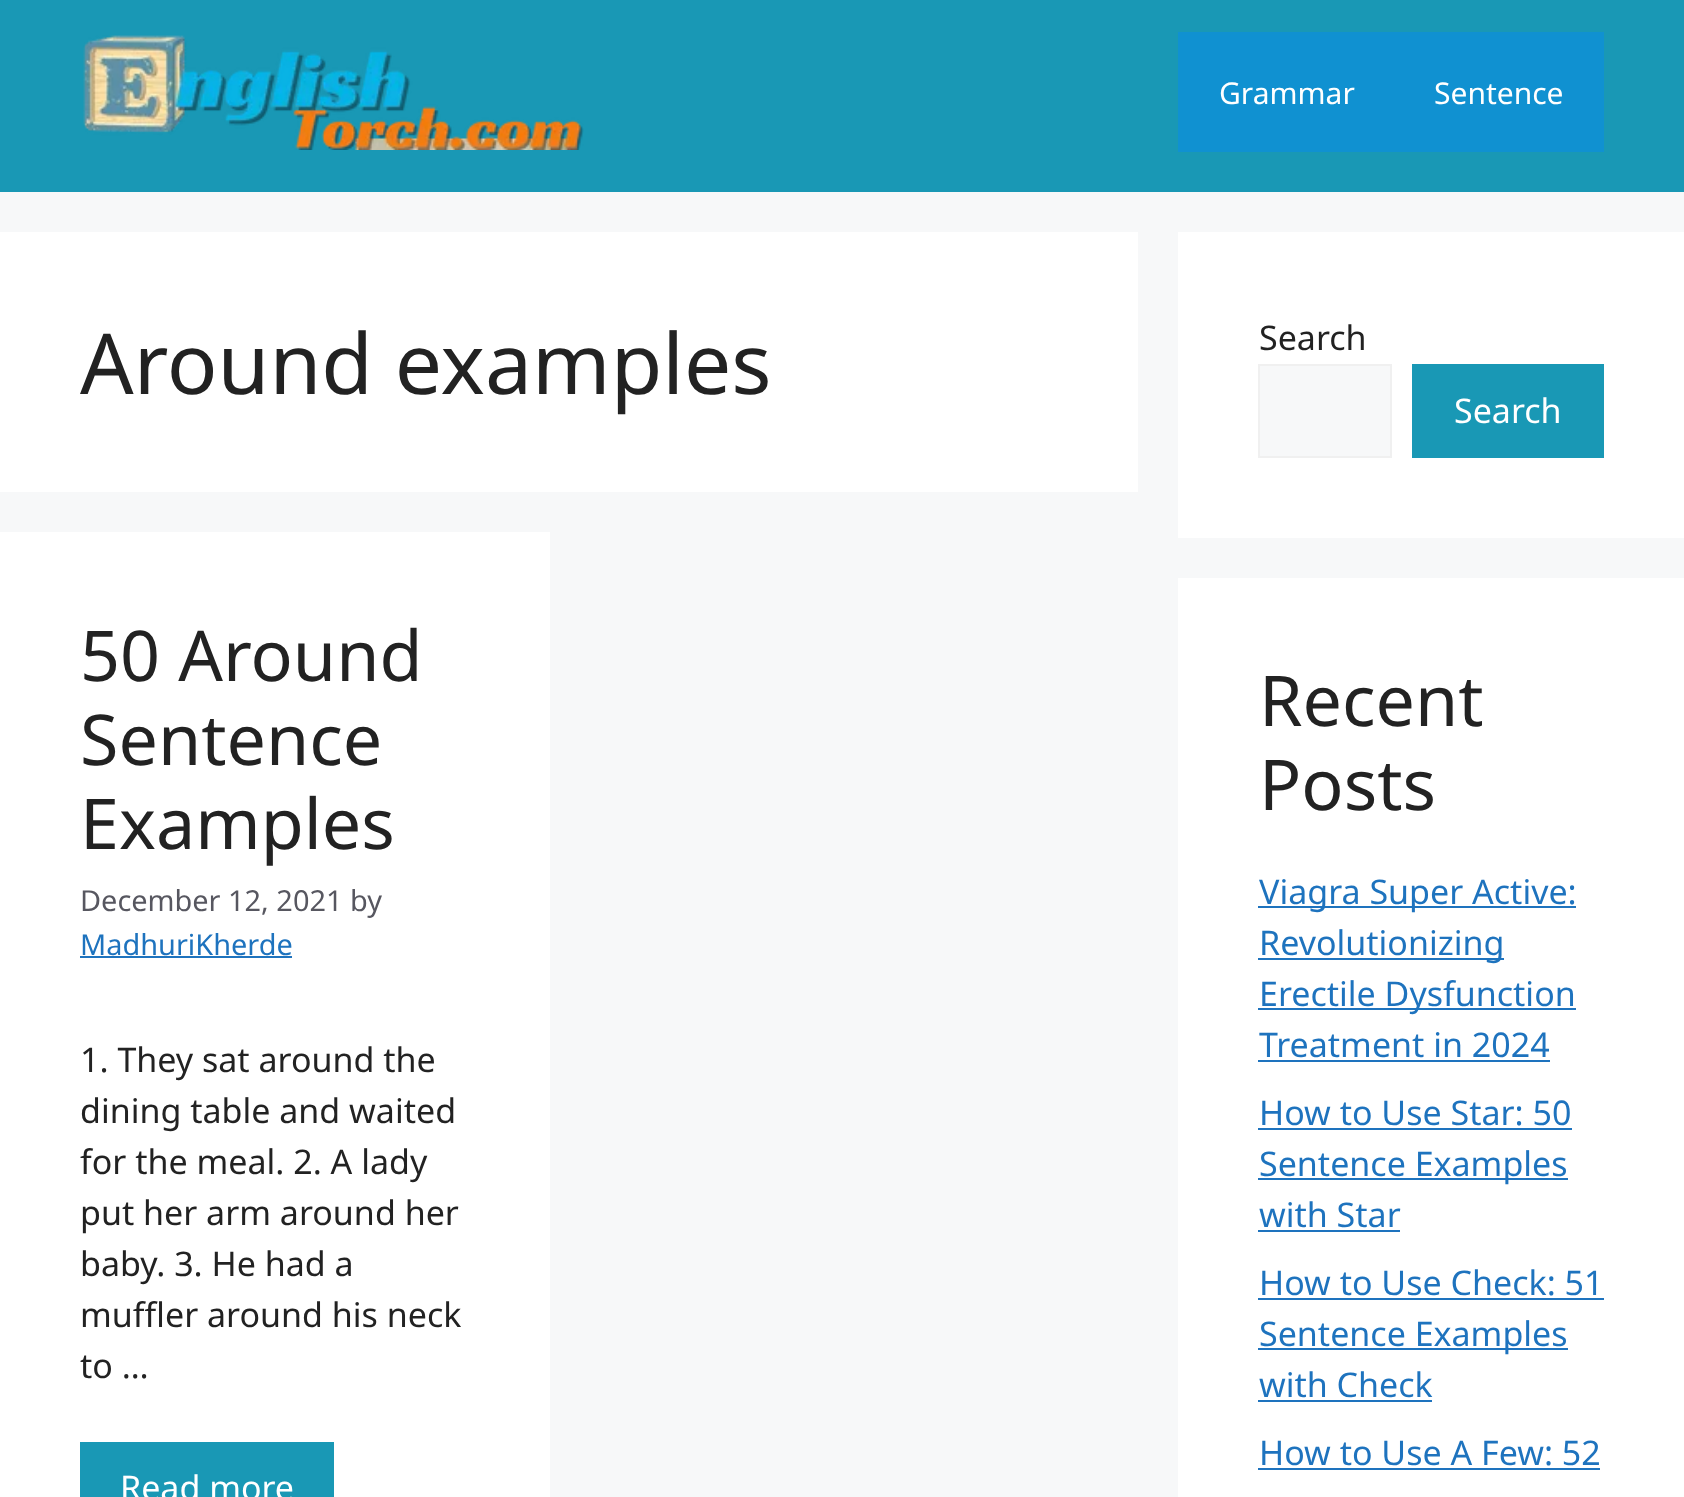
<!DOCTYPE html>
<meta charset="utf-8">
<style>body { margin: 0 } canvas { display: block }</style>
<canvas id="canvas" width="1684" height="1497"></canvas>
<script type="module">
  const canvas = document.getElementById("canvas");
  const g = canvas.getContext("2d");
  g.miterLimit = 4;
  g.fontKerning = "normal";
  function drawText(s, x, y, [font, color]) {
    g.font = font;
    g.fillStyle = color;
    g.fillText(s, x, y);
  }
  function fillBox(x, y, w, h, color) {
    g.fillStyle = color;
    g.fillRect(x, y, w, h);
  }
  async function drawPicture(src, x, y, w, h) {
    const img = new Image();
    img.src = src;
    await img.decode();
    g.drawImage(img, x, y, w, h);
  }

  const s1 = ["30px Noto Sans", "#FFFFFF"];
  const s2 = ["84px Noto Sans", "#222222"];
  const s3 = ["70px Noto Sans", "#222222"];
  const s4 = ["28.9px Noto Sans", "#575760"];
  const s5 = ["28.9px Noto Sans", "#1E73BE"];
  const s6 = ["34px Noto Sans", "#222222"];
  const s7 = ["34px Noto Sans", "#FFFFFF"];
  const s8 = ["34px Noto Sans", "#1E73BE"];

  fillBox(0, 0, 1684, 1497, "#F7F8F9");
  fillBox(0, 0, 1684, 192, "#1998B5");
  await drawPicture("pic1.png", 83, 35, 501, 115);
  fillBox(1178, 32, 426, 120, "#1091D1");
  drawText("Grammar", 1219, 104, s1);
  drawText("Sentence", 1434, 104, s1);
  fillBox(0, 232, 1138, 260, "#FFFFFF");
  drawText("Around examples", 80, 394, s2);
  fillBox(0, 532, 550, 965, "#FFFFFF");
  drawText("50 Around", 80, 681, s3);
  drawText("Sentence", 80, 765, s3);
  drawText("Examples", 80, 849, s3);
  drawText("December 12, 2021 by", 80, 911, s4);
  drawText("MadhuriKherde", 80, 955, s5);
  fillBox(80, 956, 212, 2, "#1E73BE");
  drawText("1. They sat around the", 80, 1072, s6);
  drawText("dining table and waited", 80, 1123, s6);
  drawText("for the meal. 2. A lady", 80, 1174, s6);
  drawText("put her arm around her", 80, 1225, s6);
  drawText("baby. 3. He had a", 80, 1276, s6);
  drawText("muffler around his neck", 80, 1327, s6);
  drawText("to …", 80, 1378, s6);
  fillBox(80, 1442, 254, 55, "#1998B5");
  drawText("Read more", 120, 1500, s7);
  fillBox(1178, 232, 506, 306, "#FFFFFF");
  drawText("Search", 1259, 350, s6);
  g.fillStyle = "#F7F8F9";
  g.beginPath();
  g.rect(1259, 365, 132, 92);
  g.fill();
  g.strokeStyle = "#F0F0F0";
  g.lineWidth = 2;
  g.stroke();
  fillBox(1412, 364, 192, 94, "#1998B5");
  drawText("Search", 1454, 423, s7);
  fillBox(1178, 578, 506, 919, "#FFFFFF");
  drawText("Recent", 1259, 726, s3);
  drawText("Posts", 1259, 810, s3);
  fillBox(1258, 906, 318, 2, "#1E73BE");
  drawText("Viagra Super Active:", 1259, 904, s8);
  fillBox(1258, 958, 246, 2, "#1E73BE");
  drawText("Revolutionizing", 1259, 955, s8);
  fillBox(1258, 1008, 318, 2, "#1E73BE");
  drawText("Erectile Dysfunction", 1259, 1006, s8);
  drawText("Treatment in 2024", 1259, 1057, s8);
  fillBox(1258, 1060, 292, 2, "#1E73BE");
  drawText("How to Use Star: 50", 1259, 1125, s8);
  fillBox(1258, 1128, 314, 2, "#1E73BE");
  fillBox(1258, 1178, 310, 2, "#1E73BE");
  drawText("Sentence Examples", 1259, 1176, s8);
  drawText("with Star", 1259, 1227, s8);
  fillBox(1258, 1230, 142, 2, "#1E73BE");
  drawText("How to Use Check: 51", 1259, 1295, s8);
  fillBox(1258, 1298, 346, 2, "#1E73BE");
  fillBox(1258, 1348, 310, 2, "#1E73BE");
  drawText("Sentence Examples", 1259, 1346, s8);
  drawText("with Check", 1259, 1397, s8);
  fillBox(1258, 1400, 174, 2, "#1E73BE");
  drawText("How to Use A Few: 52", 1259, 1465, s8);
  fillBox(1258, 1468, 342, 2, "#1E73BE");
</script>
